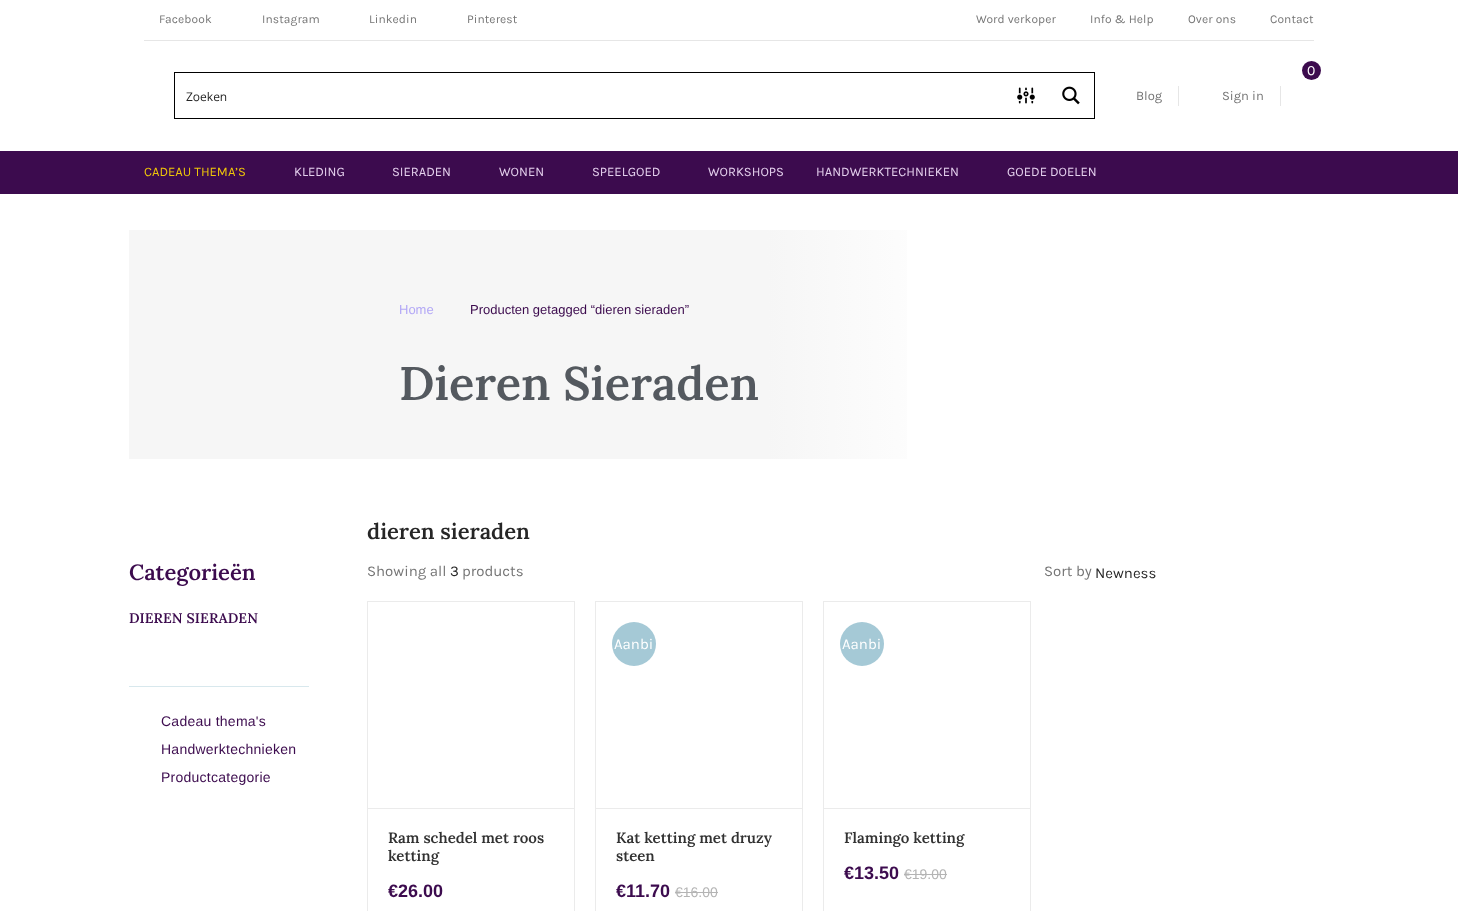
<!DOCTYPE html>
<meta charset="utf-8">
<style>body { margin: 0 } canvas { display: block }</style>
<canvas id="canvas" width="1458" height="911"></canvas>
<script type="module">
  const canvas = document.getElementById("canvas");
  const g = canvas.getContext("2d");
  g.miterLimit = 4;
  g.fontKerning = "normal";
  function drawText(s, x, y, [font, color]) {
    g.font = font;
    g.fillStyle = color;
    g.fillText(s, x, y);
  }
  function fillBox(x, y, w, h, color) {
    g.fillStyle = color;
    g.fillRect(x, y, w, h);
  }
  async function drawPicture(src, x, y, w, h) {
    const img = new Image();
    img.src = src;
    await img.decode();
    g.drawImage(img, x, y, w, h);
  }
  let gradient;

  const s1 = ["12px Karla", "#757575"];
  const s2 = ["12px Open Sans", "#262626"];
  const s3 = ["14px Karla", "#FFFFFF"];
  const s4 = ["13px Karla", "#757575"];
  const s5 = ["13px Karla", "#EFC609"];
  const s6 = ["13px Karla", "#E4D0ED"];
  const s7 = ["13px Liberation Sans", "#B3A8F6"];
  const s8 = ["13px Liberation Sans", "#3C0B4E"];
  const s9 = ["600 47px Lora", "#54595F"];
  const s10 = ["600 22px Lora", "#3C0B4E"];
  const s11 = ["600 14px Lora", "#3C0B4E"];
  const s12 = ["14px Liberation Sans", "#3C0B4E"];
  const s13 = ["600 22px Lora", "#262626"];
  const s14 = ["15px Karla", "#757575"];
  const s15 = ["15px Karla", "#262626"];
  const s16 = ["600 15px Lora", "#323232"];
  const s17 = ["bold 18px Liberation Sans", "#3C0B4E"];
  const s18 = ["15px Karla", "#FFFFFF"];
  const s19 = ["14px Liberation Sans", "#B4B4B4"];

  fillBox(0, 0, 1458, 911, "#FFFFFF");
  fillBox(144, 40, 1170, 1, "#E6E6E6");
  g.letterSpacing = "0.1px";
  drawText("Facebook", 159, 23, s1);
  drawText("Instagram", 262, 23, s1);
  drawText("Linkedin", 369, 23, s1);
  drawText("Pinterest", 467, 23, s1);
  drawText("Word verkoper", 976, 23, s1);
  drawText("Info & Help", 1090, 23, s1);
  drawText("Over ons", 1188, 23, s1);
  drawText("Contact", 1270, 23, s1);
  g.strokeStyle = "#000000";
  g.strokeRect(174.5, 72.5, 920, 46);
  g.letterSpacing = "0px";
  drawText("Zoeken", 186, 101, s2);
  await drawPicture("pic1.png", 1017, 87, 18, 17);
  await drawPicture("pic2.png", 1062, 86, 18, 19);
  g.fillStyle = "#3C0B4E";
  g.beginPath();
  g.arc(1311.5, 70.5, 9.5, 0, Math.PI * 2);
  g.fill();
  drawText("0", 1307, 75, s3);
  fillBox(1280, 86, 1, 20, "#E6E6E6");
  drawText("Blog", 1136, 100, s4);
  fillBox(1178, 86, 1, 20, "#E6E6E6");
  drawText("Sign in", 1222, 100, s4);
  fillBox(0, 151, 1458, 43, "#3C0B4E");
  drawText("CADEAU THEMA’S", 144, 176, s5);
  drawText("KLEDING", 294, 176, s6);
  drawText("SIERADEN", 392, 176, s6);
  drawText("WONEN", 499, 176, s6);
  drawText("SPEELGOED", 592, 176, s6);
  drawText("WORKSHOPS", 708, 176, s6);
  drawText("HANDWERKTECHNIEKEN", 816, 176, s6);
  drawText("GOEDE DOELEN", 1007, 176, s6);
  gradient = g.createLinearGradient(129, 345, 1269, 344);
  gradient.addColorStop(0.56, "#F6F6F6");
  gradient.addColorStop(0.73, "#FFFFFF");
  g.fillStyle = gradient;
  g.fillRect(129, 230, 778, 229);
  drawText("Home", 399, 314, s7);
  drawText("Producten getagged “dieren sieraden”", 470, 314, s8);
  drawText("Dieren Sieraden", 399, 400, s9);
  drawText("Categorieën", 129, 580, s10);
  g.letterSpacing = "0.1px";
  drawText("DIEREN SIERADEN", 129, 623, s11);
  fillBox(129, 686, 180, 1, "#D8E8ED");
  g.letterSpacing = "0.25px";
  drawText("Cadeau thema's", 161, 726, s12);
  drawText("Handwerktechnieken", 161, 754, s12);
  drawText("Productcategorie", 161, 782, s12);
  g.letterSpacing = "0px";
  drawText("dieren sieraden", 367, 539, s13);
  drawText("Showing all", 367, 576, s14);
  drawText("3", 450, 576, s15);
  drawText("products", 462, 576, s14);
  drawText("Sort by", 1044, 576, s14);
  drawText("Newness", 1095, 578, s15);
  g.strokeStyle = "#EBEBEB";
  g.strokeRect(367.5, 601.5, 207, 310);
  fillBox(368, 808, 206, 1, "#EBEBEB");
  drawText("Ram schedel met roos", 388, 843, s16);
  drawText("ketting", 388, 861, s16);
  drawText("€26.00", 388, 897, s17);
  g.strokeRect(595.5, 601.5, 207, 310);
  fillBox(596, 808, 206, 1, "#EBEBEB");
  g.fillStyle = "#A5C9D6";
  g.beginPath();
  g.arc(634, 644, 22, 0, Math.PI * 2);
  g.fill();
  drawText("Aanbi", 614, 649, s18);
  drawText("Kat ketting met druzy", 616, 843, s16);
  drawText("steen", 616, 861, s16);
  drawText("€11.70", 616, 897, s17);
  drawText("€16.00", 675, 897, s19);
  fillBox(675, 892, 43, 1, "#B4B4B4");
  g.strokeRect(823.5, 601.5, 207, 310);
  fillBox(824, 808, 206, 1, "#EBEBEB");
  g.fillStyle = "#A5C9D6";
  g.beginPath();
  g.arc(862, 644, 22, 0, Math.PI * 2);
  g.fill();
  drawText("Aanbi", 842, 649, s18);
  drawText("Flamingo ketting", 844, 843, s16);
  drawText("€13.50", 844, 879, s17);
  drawText("€19.00", 904, 879, s19);
  fillBox(904, 874, 43, 1, "#B4B4B4");
</script>
